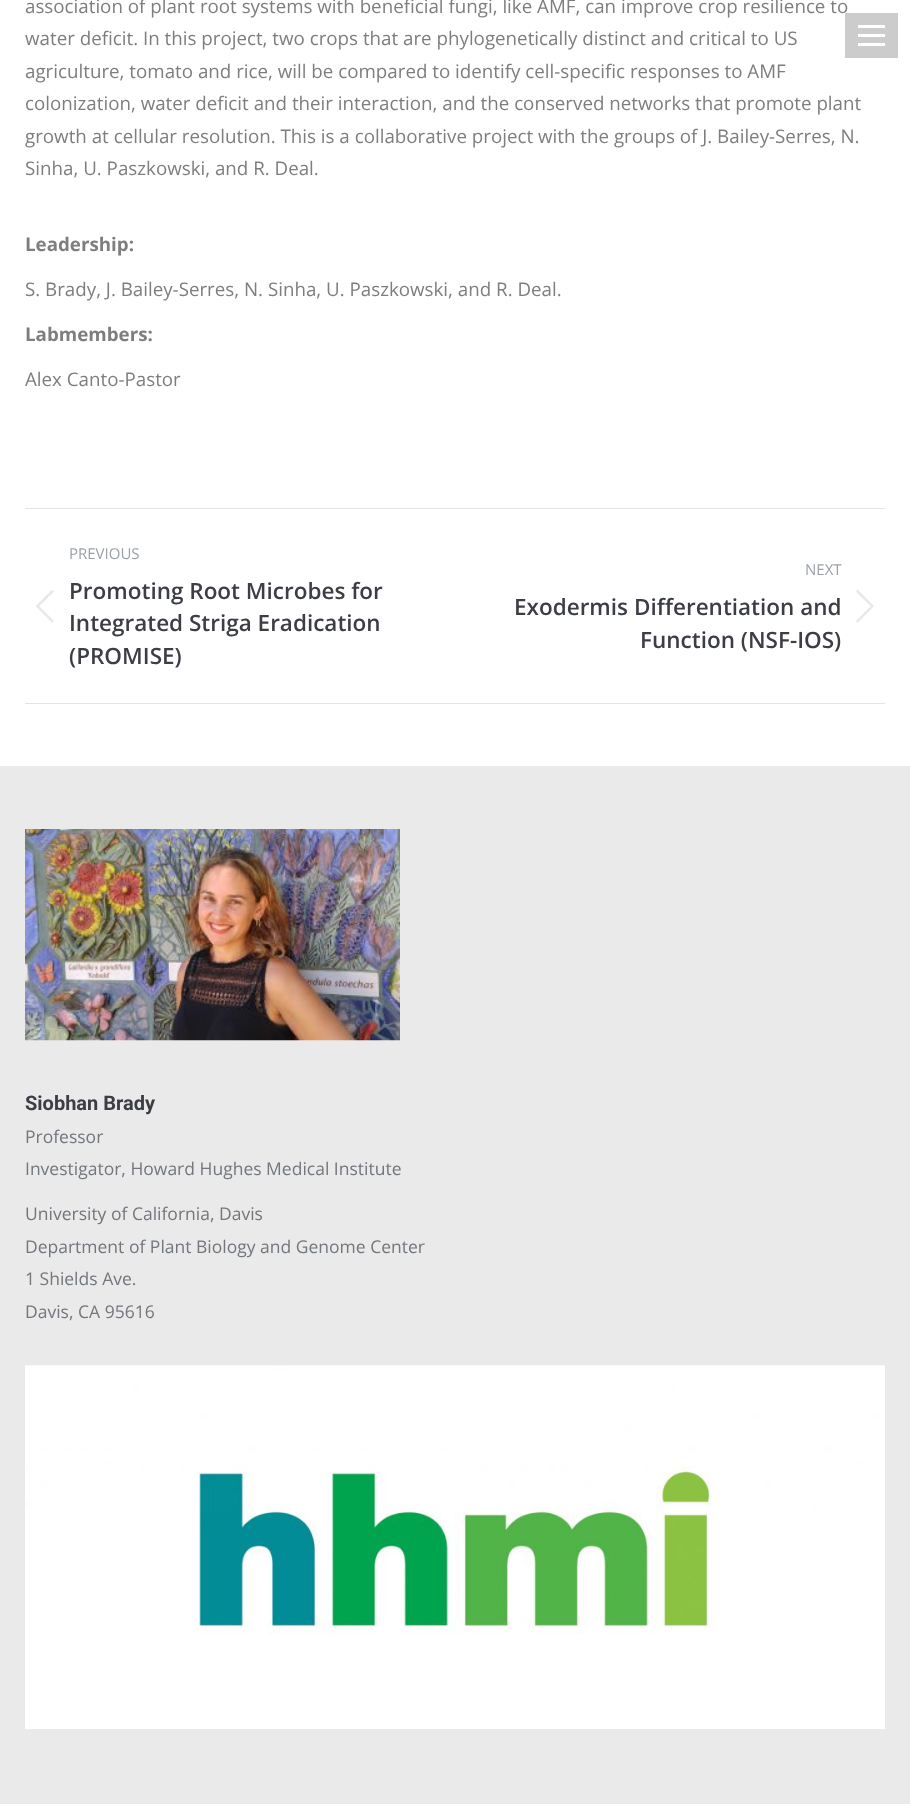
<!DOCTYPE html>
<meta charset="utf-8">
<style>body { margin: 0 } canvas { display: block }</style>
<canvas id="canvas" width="910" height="1811"></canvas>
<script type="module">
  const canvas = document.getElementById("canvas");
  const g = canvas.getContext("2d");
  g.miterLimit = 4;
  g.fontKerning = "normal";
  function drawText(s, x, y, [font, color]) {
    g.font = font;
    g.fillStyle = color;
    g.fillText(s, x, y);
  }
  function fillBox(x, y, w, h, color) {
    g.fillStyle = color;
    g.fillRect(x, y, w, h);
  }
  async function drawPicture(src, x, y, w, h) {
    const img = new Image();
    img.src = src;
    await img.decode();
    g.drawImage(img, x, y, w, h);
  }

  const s1 = ["18.75px Open Sans", "#7E7E7E"];
  const s2 = ["bold 18.75px Open Sans", "#7E7E7E"];
  const s3 = ["15px Open Sans", "#9BA1A8"];
  const s4 = ["600 22.5px Open Sans", "#3C3E45"];
  const s5 = ["bold 20px Roboto", "#3C3E45"];
  const s6 = ["17.5px Open Sans", "#72777D"];

  fillBox(0, 0, 910, 1811, "#FFFFFF");
  drawText("association of plant root systems with beneficial fungi, like AMF, can improve crop resilience to", 25, 13, s1);
  drawText("water deficit. In this project, two crops that are phylogenetically distinct and critical to US", 25, 45, s1);
  drawText("agriculture, tomato and rice, will be compared to identify cell-specific responses to AMF", 25, 78, s1);
  drawText("colonization, water deficit and their interaction, and the conserved networks that promote plant", 25, 110, s1);
  drawText("growth at cellular resolution. This is a collaborative project with the groups of J. Bailey-Serres, N.", 25, 143, s1);
  drawText("Sinha, U. Paszkowski, and R. Deal.", 25, 175, s1);
  drawText("Leadership:", 25, 251, s2);
  drawText("S. Brady, J. Bailey-Serres, N. Sinha, U. Paszkowski, and R. Deal.", 25, 296, s1);
  drawText("Labmembers:", 25, 341, s2);
  drawText("Alex Canto-Pastor", 25, 386, s1);
  fillBox(25, 508, 860, 1, "#E3E3E3");
  fillBox(25, 703, 860, 1, "#E3E3E3");
  drawText("PREVIOUS", 69, 559, s3);
  await drawPicture("pic1.png", 36, 590, 18, 33);
  drawText("Promoting Root Microbes for", 69, 599, s4);
  drawText("Integrated Striga Eradication", 69, 631, s4);
  drawText("(PROMISE)", 69, 664, s4);
  drawText("NEXT", 805, 575, s3);
  drawText("Exodermis Differentiation and", 514, 615, s4);
  drawText("Function (NSF-IOS)", 640, 648, s4);
  await drawPicture("pic2.png", 856, 590, 18, 33);
  fillBox(845, 13, 53, 45, "#CCCCCC");
  fillBox(858, 25, 27, 3, "#FFFFFF");
  fillBox(858, 34, 27, 3, "#FFFFFF");
  fillBox(858, 43, 27, 3, "#FFFFFF");
  fillBox(0, 766, 910, 1038, "#EAEAEA");
  await drawPicture("pic3.png", 25, 829, 375, 212);
  drawText("Siobhan Brady", 25, 1110, s5);
  drawText("Professor", 25, 1143, s6);
  drawText("Investigator, Howard Hughes Medical Institute", 25, 1175, s6);
  drawText("University of California, Davis", 25, 1220, s6);
  drawText("Department of Plant Biology and Genome Center", 25, 1253, s6);
  drawText("1 Shields Ave.", 25, 1285, s6);
  drawText("Davis, CA 95616", 25, 1318, s6);
  await drawPicture("pic4.png", 25, 1365, 860, 364);
</script>
